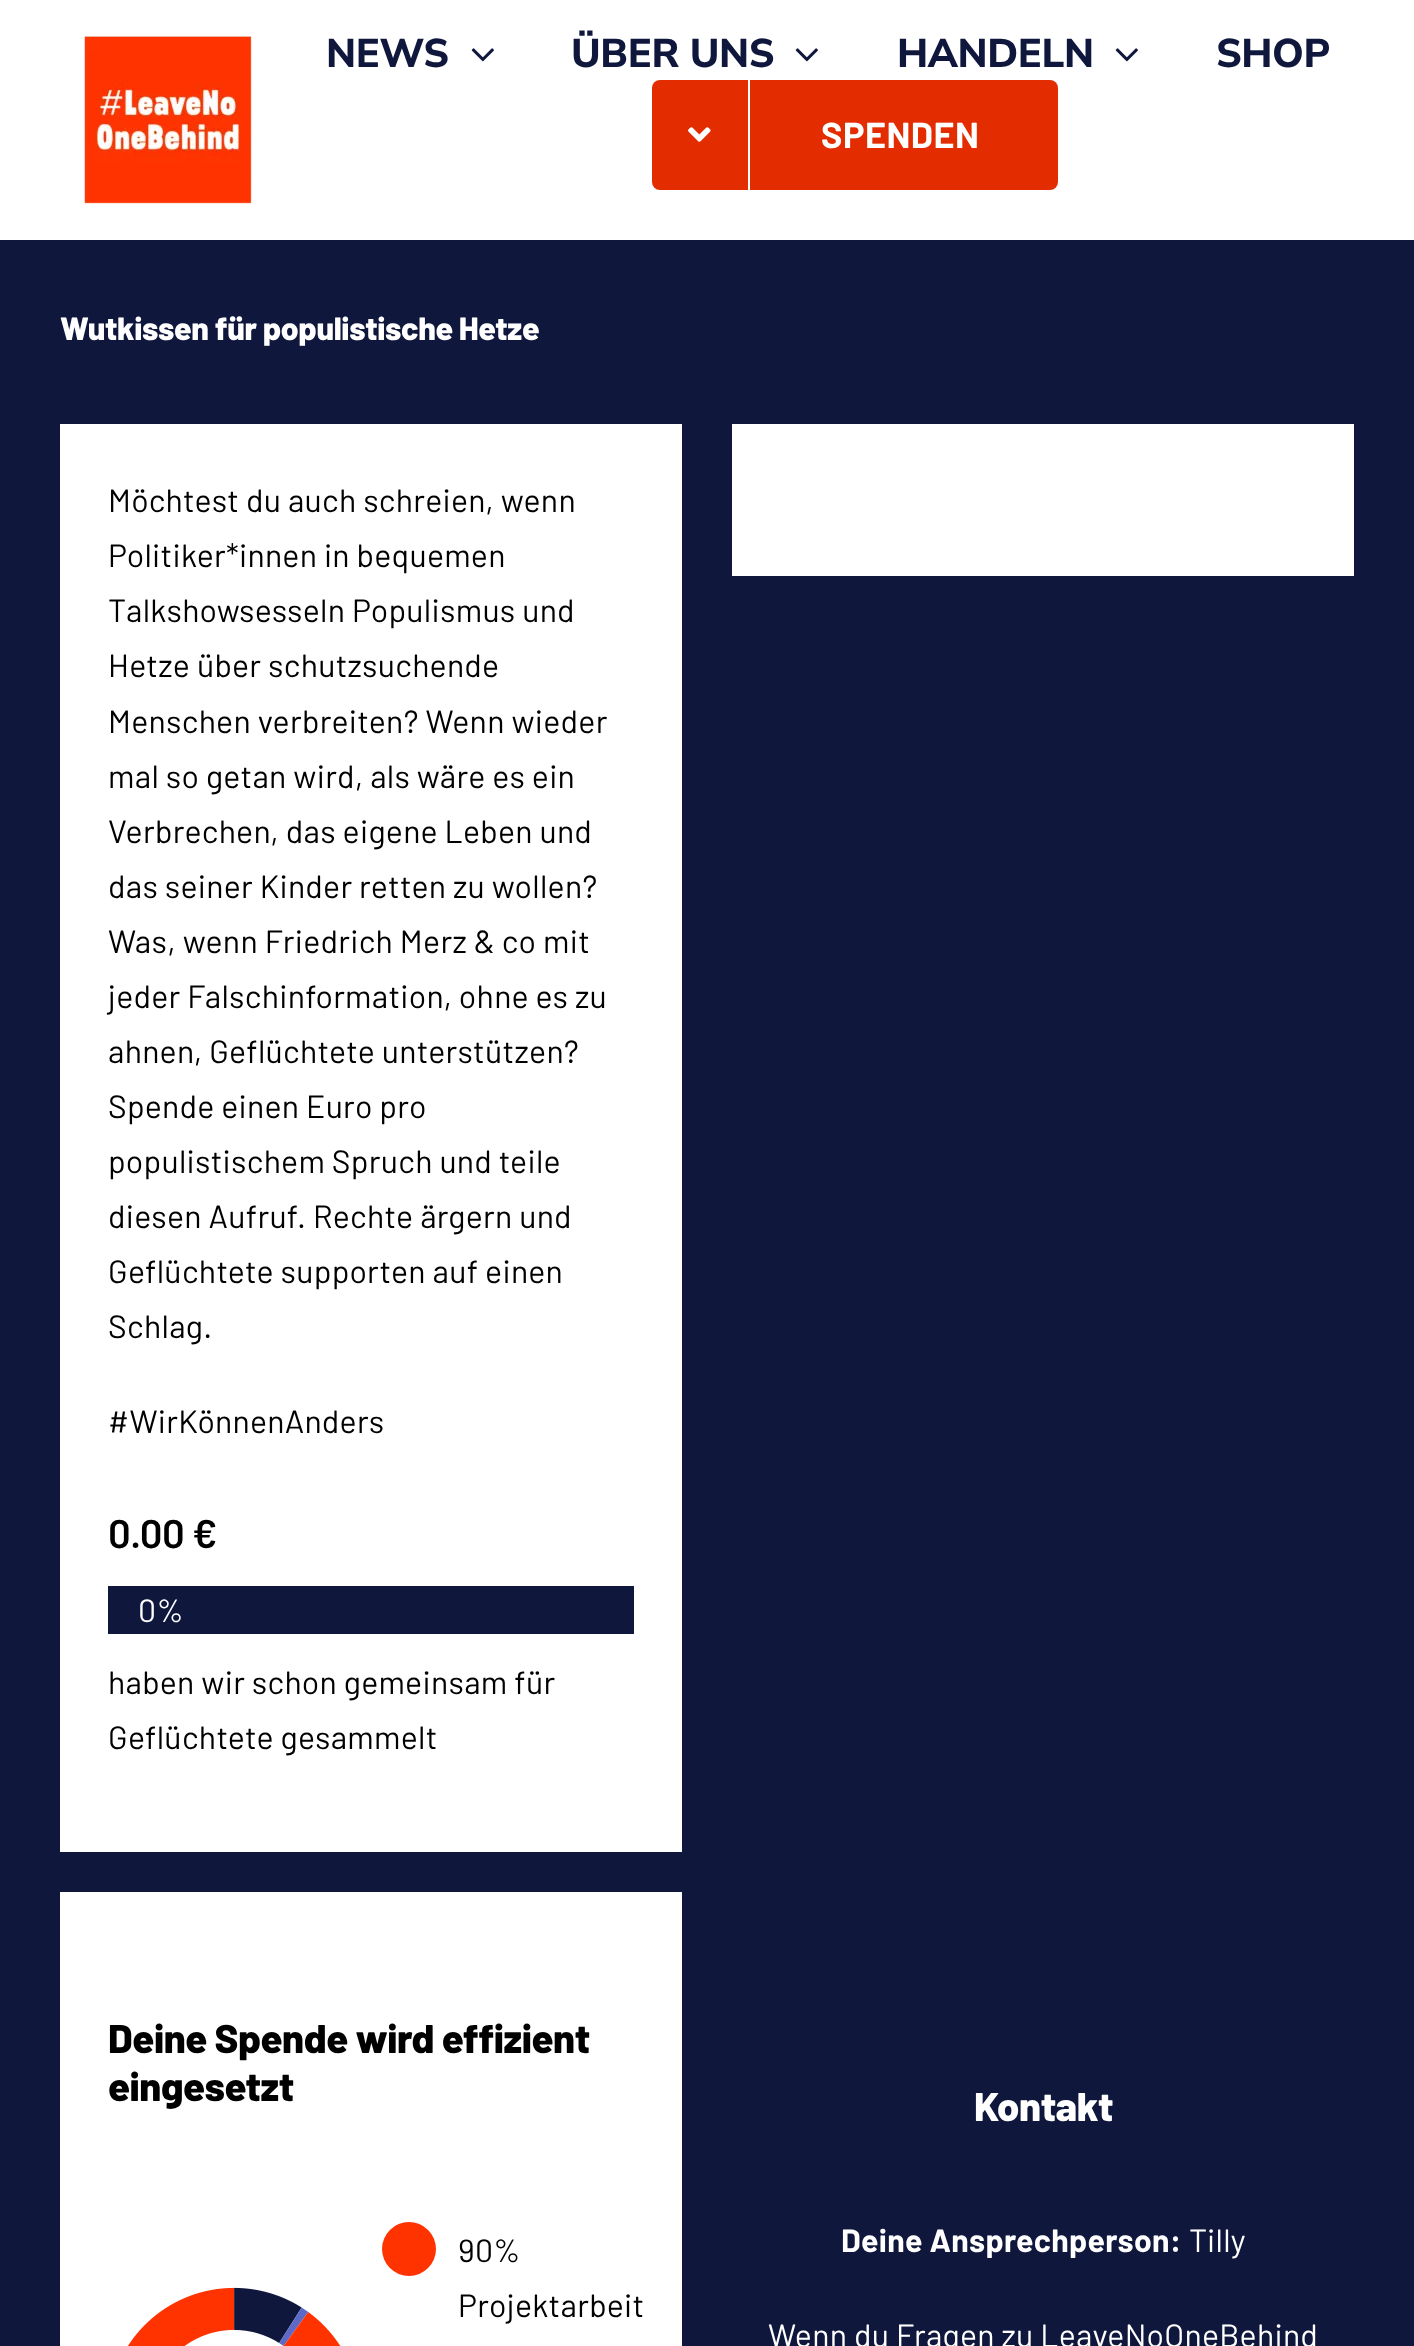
<!DOCTYPE html>
<meta charset="utf-8">
<style>body { margin: 0 } canvas { display: block }</style>
<canvas id="canvas" width="1414" height="2346"></canvas>
<script type="module">
  const canvas = document.getElementById("canvas");
  const g = canvas.getContext("2d");
  g.miterLimit = 4;
  g.fontKerning = "normal";
  function drawText(s, x, y, [font, color]) {
    g.font = font;
    g.fillStyle = color;
    g.fillText(s, x, y);
  }
  function fillBox(x, y, w, h, color) {
    g.fillStyle = color;
    g.fillRect(x, y, w, h);
  }
  function fillRounded(x, y, w, h, r, color) {
    g.fillStyle = color;
    g.beginPath();
    g.roundRect(x, y, w, h, r);
    g.fill();
  }
  async function drawPicture(src, x, y, w, h) {
    const img = new Image();
    img.src = src;
    await img.decode();
    g.drawImage(img, x, y, w, h);
  }

  const s1 = ["800 40px Nunito Sans", "#0F173D"];
  const s2 = ["bold 36px Barlow", "#FFFFFF"];
  const s3 = ["800 32px Barlow", "#FFFFFF"];
  const s4 = ["32px Barlow", "#000000"];
  const s5 = ["600 40px Barlow", "#000000"];
  const s6 = ["32px Barlow", "#FFFFFF"];
  const s7 = ["800 40px Barlow", "#000000"];
  const s8 = ["800 40px Barlow", "#FFFFFF"];
  const s9 = ["bold 32px Barlow", "#FFFFFF"];

  fillBox(0, 0, 1414, 2346, "#0F173D");
  fillBox(0, 0, 1414, 240, "#FFFFFF");
  await drawPicture("pic1.png", 84, 36, 168, 168);
  g.letterSpacing = "-0.4px";
  drawText("NEWS", 326, 67, s1);
  await drawPicture("pic2.png", 471, 48, 23, 14);
  drawText("ÜBER UNS", 571, 67, s1);
  await drawPicture("pic2.png", 795, 48, 23, 14);
  drawText("HANDELN", 897, 67, s1);
  await drawPicture("pic2.png", 1115, 48, 23, 14);
  drawText("SHOP", 1216, 67, s1);
  fillRounded(652, 80, 406, 110, 8, "#E32D00");
  fillBox(748, 80, 2, 110, "#FFFFFF");
  await drawPicture("pic3.png", 688, 127, 23, 15);
  g.letterSpacing = "0.5px";
  drawText("SPENDEN", 821, 148, s2);
  g.letterSpacing = "-0.3px";
  drawText("Wutkissen für populistische Hetze", 60, 340, s3);
  fillBox(60, 424, 622, 1428, "#FFFFFF");
  g.letterSpacing = "0.3px";
  drawText("Möchtest du auch schreien, wenn", 108, 512, s4);
  drawText("Politiker*innen in bequemen", 108, 567, s4);
  drawText("Talkshowsesseln Populismus und", 108, 622, s4);
  drawText("Hetze über schutzsuchende", 108, 677, s4);
  drawText("Menschen verbreiten? Wenn wieder", 108, 733, s4);
  drawText("mal so getan wird, als wäre es ein", 108, 788, s4);
  drawText("Verbrechen, das eigene Leben und", 108, 843, s4);
  drawText("das seiner Kinder retten zu wollen?", 108, 898, s4);
  drawText("Was, wenn Friedrich Merz & co mit", 108, 953, s4);
  drawText("jeder Falschinformation, ohne es zu", 108, 1008, s4);
  drawText("ahnen, Geflüchtete unterstützen?", 108, 1063, s4);
  drawText("Spende einen Euro pro", 108, 1118, s4);
  drawText("populistischem Spruch und teile", 108, 1173, s4);
  drawText("diesen Aufruf. Rechte ärgern und", 108, 1228, s4);
  drawText("Geflüchtete supporten auf einen", 108, 1283, s4);
  drawText("Schlag.", 108, 1338, s4);
  drawText("#WirKönnenAnders", 108, 1433, s4);
  g.letterSpacing = "-0.4px";
  drawText("0.00 €", 108, 1548, s5);
  fillBox(108, 1586, 526, 48, "#0F173D");
  g.letterSpacing = "0.3px";
  drawText("0%", 138, 1622, s6);
  drawText("haben wir schon gemeinsam für", 108, 1694, s4);
  drawText("Geflüchtete gesammelt", 108, 1749, s4);
  fillBox(732, 424, 622, 152, "#FFFFFF");
  fillBox(60, 1892, 622, 454, "#FFFFFF");
  g.letterSpacing = "-0.4px";
  drawText("Deine Spende wird effizient", 108, 2053, s7);
  drawText("eingesetzt", 108, 2101, s7);
  await drawPicture("pic4.png", 128, 2287, 213, 59);
  g.fillStyle = "#FF3300";
  g.beginPath();
  g.arc(409, 2249, 27, 0, Math.PI * 2);
  g.fill();
  g.letterSpacing = "0.3px";
  drawText("90%", 458, 2262, s4);
  drawText("Projektarbeit", 458, 2317, s4);
  g.letterSpacing = "-0.4px";
  drawText("Kontakt", 974, 2121, s8);
  g.letterSpacing = "0.3px";
  drawText("Deine Ansprechperson:", 841, 2252, s9);
  drawText("Tilly", 1189, 2252, s6);
  drawText("Wenn du Fragen zu LeaveNoOneBehind", 768, 2347, s6);
</script>
